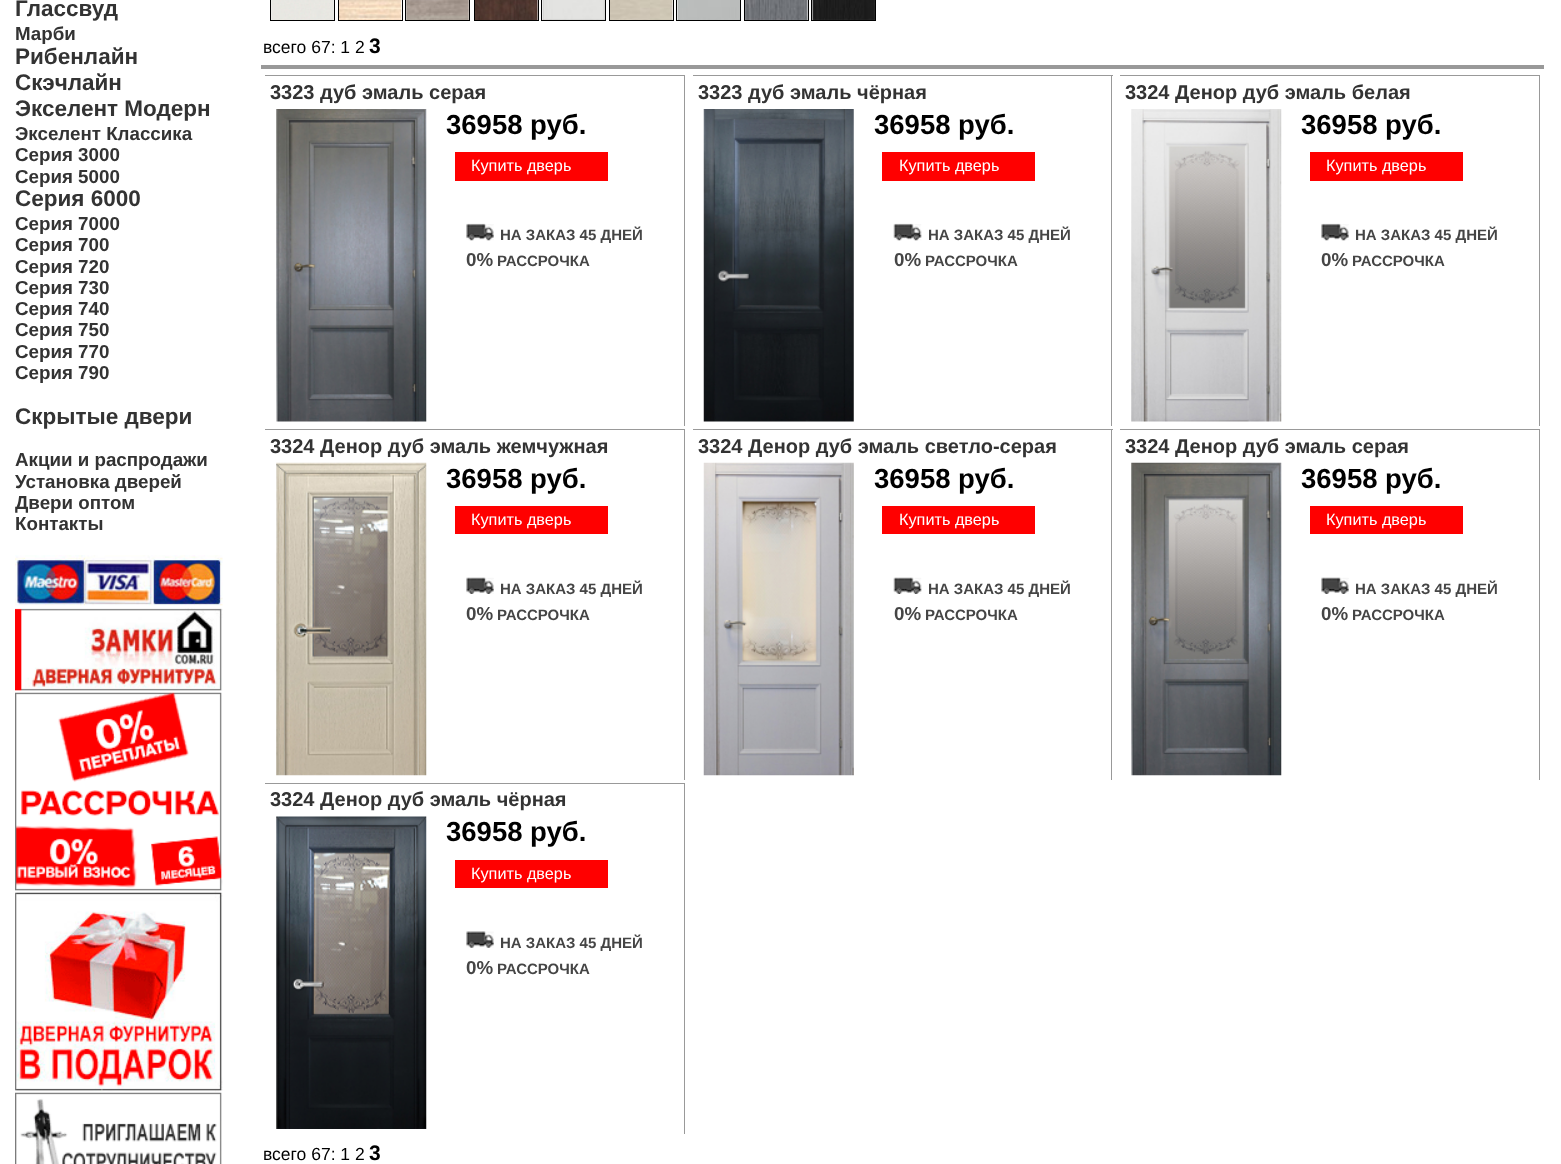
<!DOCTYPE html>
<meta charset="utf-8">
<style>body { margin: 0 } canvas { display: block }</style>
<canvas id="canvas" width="1561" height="1164"></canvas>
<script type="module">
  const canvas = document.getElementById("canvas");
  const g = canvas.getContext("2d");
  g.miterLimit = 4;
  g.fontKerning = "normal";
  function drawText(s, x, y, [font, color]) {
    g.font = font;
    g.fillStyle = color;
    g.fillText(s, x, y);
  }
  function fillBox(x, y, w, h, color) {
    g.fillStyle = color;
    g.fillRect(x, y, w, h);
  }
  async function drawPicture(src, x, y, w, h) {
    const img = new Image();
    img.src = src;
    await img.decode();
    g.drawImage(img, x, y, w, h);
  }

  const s1 = ["bold 22.5px Liberation Sans", "#333333"];
  const s2 = ["bold 18.75px Liberation Sans", "#333333"];
  const s3 = ["17.5px Liberation Sans", "#000000"];
  const s4 = ["bold 21px Liberation Sans", "#000000"];
  const s5 = ["bold 20px Liberation Sans", "#333333"];
  const s6 = ["bold 27.5px Liberation Sans", "#000000"];
  const s7 = ["16.25px Liberation Sans", "#FFFFFF"];
  const s8 = ["bold 15px Liberation Sans", "#454545"];
  const s9 = ["bold 18.75px Liberation Sans", "#454545"];

  fillBox(0, 0, 1561, 1164, "#FFFFFF");
  drawText("Глассвуд", 15, 16, s1);
  drawText("Марби", 15, 40, s2);
  drawText("Рибенлайн", 15, 64, s1);
  drawText("Скэчлайн", 15, 90, s1);
  drawText("Экселент Модерн", 15, 116, s1);
  drawText("Экселент Классика", 15, 140, s2);
  drawText("Серия 3000", 15, 161, s2);
  drawText("Серия 5000", 15, 183, s2);
  drawText("Серия 6000", 15, 206, s1);
  drawText("Серия 7000", 15, 230, s2);
  drawText("Серия 700", 15, 251, s2);
  drawText("Серия 720", 15, 273, s2);
  drawText("Серия 730", 15, 294, s2);
  drawText("Серия 740", 15, 315, s2);
  drawText("Серия 750", 15, 336, s2);
  drawText("Серия 770", 15, 358, s2);
  drawText("Серия 790", 15, 379, s2);
  drawText("Скрытые двери", 15, 424, s1);
  drawText("Акции и распродажи", 15, 466, s2);
  drawText("Установка дверей", 15, 488, s2);
  drawText("Двери оптом", 15, 509, s2);
  drawText("Контакты", 15, 530, s2);
  await drawPicture("pic1.png", 15, 555, 208, 51);
  await drawPicture("pic2.png", 15, 608, 208, 83);
  await drawPicture("pic3.png", 15, 692, 208, 199);
  await drawPicture("pic4.png", 15, 891, 208, 201);
  await drawPicture("pic5.png", 15, 1092, 207, 72);
  await drawPicture("pic6.png", 271, 0, 63, 20);
  g.strokeStyle = "#000000";
  g.strokeRect(270.5, -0.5, 64, 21);
  await drawPicture("pic7.png", 339, 0, 63, 20);
  g.strokeRect(338.5, -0.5, 64, 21);
  await drawPicture("pic8.png", 406, 0, 63, 20);
  g.strokeRect(405.5, -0.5, 64, 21);
  await drawPicture("pic9.png", 475, 0, 63, 20);
  g.strokeRect(474.5, -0.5, 64, 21);
  await drawPicture("pic10.png", 542, 0, 63, 20);
  g.strokeRect(541.5, -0.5, 64, 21);
  await drawPicture("pic11.png", 610, 0, 63, 20);
  g.strokeRect(609.5, -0.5, 64, 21);
  await drawPicture("pic12.png", 677, 0, 63, 20);
  g.strokeRect(676.5, -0.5, 64, 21);
  await drawPicture("pic13.png", 745, 0, 63, 20);
  g.strokeRect(744.5, -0.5, 64, 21);
  await drawPicture("pic14.png", 812, 0, 63, 20);
  g.strokeRect(811.5, -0.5, 64, 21);
  drawText("всего 67: 1 2", 263, 53, s3);
  drawText("3", 369, 53, s4);
  fillBox(261, 65, 1283, 4, "#999999");
  fillBox(265, 75, 420, 1, "#999999");
  fillBox(684, 75, 1, 351, "#999999");
  drawText("3323 дуб эмаль серая", 270, 99, s5);
  await drawPicture("pic15.png", 276, 109, 151, 313);
  drawText("36958 руб.", 446, 134, s6);
  fillBox(455, 152, 153, 29, "#FF0000");
  drawText("Купить дверь", 471, 171, s7);
  await drawPicture("pic16.png", 466, 223, 28, 18);
  drawText("НА ЗАКАЗ 45 ДНЕЙ", 500, 240, s8);
  drawText("0%", 466, 266, s9);
  drawText("РАССРОЧКА", 497, 266, s8);
  fillBox(693, 75, 420, 1, "#999999");
  fillBox(1111, 75, 1, 351, "#999999");
  drawText("3323 дуб эмаль чёрная", 698, 99, s5);
  await drawPicture("pic17.png", 703, 109, 151, 313);
  drawText("36958 руб.", 874, 134, s6);
  fillBox(882, 152, 153, 29, "#FF0000");
  drawText("Купить дверь", 899, 171, s7);
  await drawPicture("pic18.png", 893, 223, 29, 18);
  drawText("НА ЗАКАЗ 45 ДНЕЙ", 928, 240, s8);
  drawText("0%", 894, 266, s9);
  drawText("РАССРОЧКА", 925, 266, s8);
  fillBox(1120, 75, 420, 1, "#999999");
  fillBox(1539, 75, 1, 351, "#999999");
  drawText("3324 Денор дуб эмаль белая", 1125, 99, s5);
  await drawPicture("pic19.png", 1131, 109, 151, 313);
  drawText("36958 руб.", 1301, 134, s6);
  fillBox(1310, 152, 153, 29, "#FF0000");
  drawText("Купить дверь", 1326, 171, s7);
  await drawPicture("pic16.png", 1321, 223, 28, 18);
  drawText("НА ЗАКАЗ 45 ДНЕЙ", 1355, 240, s8);
  drawText("0%", 1321, 266, s9);
  drawText("РАССРОЧКА", 1352, 266, s8);
  fillBox(265, 429, 420, 1, "#999999");
  fillBox(684, 429, 1, 351, "#999999");
  drawText("3324 Денор дуб эмаль жемчужная", 270, 453, s5);
  await drawPicture("pic20.png", 276, 462, 151, 314);
  drawText("36958 руб.", 446, 488, s6);
  fillBox(455, 506, 153, 28, "#FF0000");
  drawText("Купить дверь", 471, 525, s7);
  await drawPicture("pic21.png", 466, 577, 28, 17);
  drawText("НА ЗАКАЗ 45 ДНЕЙ", 500, 594, s8);
  drawText("0%", 466, 620, s9);
  drawText("РАССРОЧКА", 497, 620, s8);
  fillBox(693, 429, 420, 1, "#999999");
  fillBox(1111, 429, 1, 351, "#999999");
  drawText("3324 Денор дуб эмаль светло-серая", 698, 453, s5);
  await drawPicture("pic22.png", 703, 462, 151, 314);
  drawText("36958 руб.", 874, 488, s6);
  fillBox(882, 506, 153, 28, "#FF0000");
  drawText("Купить дверь", 899, 525, s7);
  await drawPicture("pic23.png", 893, 577, 29, 17);
  drawText("НА ЗАКАЗ 45 ДНЕЙ", 928, 594, s8);
  drawText("0%", 894, 620, s9);
  drawText("РАССРОЧКА", 925, 620, s8);
  fillBox(1120, 429, 420, 1, "#999999");
  fillBox(1539, 429, 1, 351, "#999999");
  drawText("3324 Денор дуб эмаль серая", 1125, 453, s5);
  await drawPicture("pic24.png", 1131, 462, 151, 314);
  drawText("36958 руб.", 1301, 488, s6);
  fillBox(1310, 506, 153, 28, "#FF0000");
  drawText("Купить дверь", 1326, 525, s7);
  await drawPicture("pic21.png", 1321, 577, 28, 17);
  drawText("НА ЗАКАЗ 45 ДНЕЙ", 1355, 594, s8);
  drawText("0%", 1321, 620, s9);
  drawText("РАССРОЧКА", 1352, 620, s8);
  fillBox(265, 783, 420, 1, "#999999");
  fillBox(684, 783, 1, 351, "#999999");
  drawText("3324 Денор дуб эмаль чёрная", 270, 806, s5);
  await drawPicture("pic25.png", 276, 816, 151, 313);
  drawText("36958 руб.", 446, 841, s6);
  fillBox(455, 860, 153, 28, "#FF0000");
  drawText("Купить дверь", 471, 879, s7);
  await drawPicture("pic26.png", 466, 931, 28, 17);
  drawText("НА ЗАКАЗ 45 ДНЕЙ", 500, 948, s8);
  drawText("0%", 466, 974, s9);
  drawText("РАССРОЧКА", 497, 974, s8);
  drawText("всего 67: 1 2", 263, 1160, s3);
  drawText("3", 369, 1160, s4);
</script>
